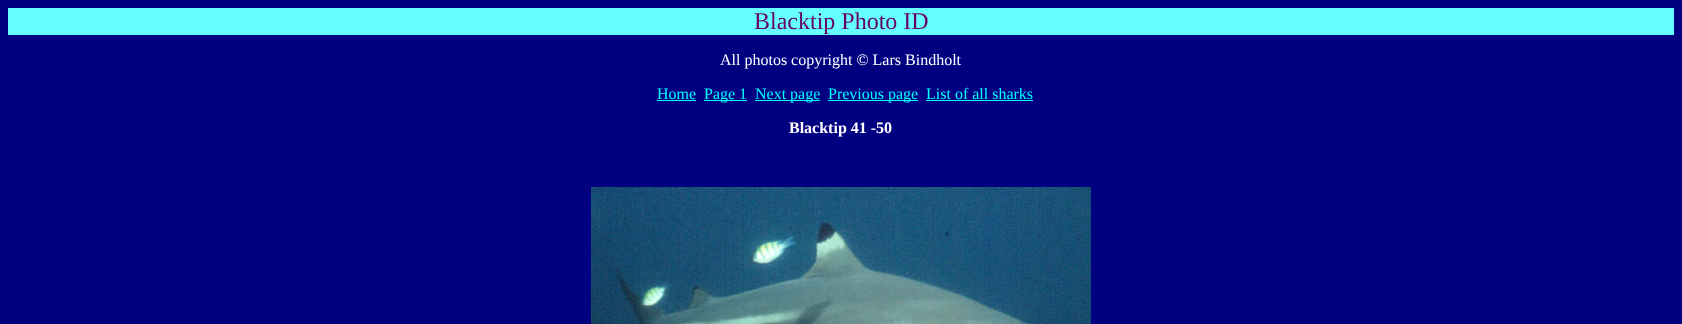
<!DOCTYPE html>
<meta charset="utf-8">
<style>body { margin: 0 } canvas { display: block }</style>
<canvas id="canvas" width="1682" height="324"></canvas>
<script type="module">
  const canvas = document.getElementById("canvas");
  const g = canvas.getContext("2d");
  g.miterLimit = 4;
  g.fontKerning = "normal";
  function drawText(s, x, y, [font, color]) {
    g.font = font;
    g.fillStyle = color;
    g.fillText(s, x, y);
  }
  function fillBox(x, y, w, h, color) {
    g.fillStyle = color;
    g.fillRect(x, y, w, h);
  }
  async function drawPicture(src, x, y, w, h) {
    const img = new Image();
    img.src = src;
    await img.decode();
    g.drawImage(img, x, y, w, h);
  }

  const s1 = ["24px Liberation Serif", "#660066"];
  const s2 = ["16px Liberation Serif", "#FFFFFF"];
  const s3 = ["16px Liberation Serif", "#00FFFF"];
  const s4 = ["bold 16px Liberation Serif", "#FFFFFF"];

  fillBox(0, 0, 1682, 324, "#000080");
  fillBox(8, 8, 1666, 27, "#66FFFF");
  drawText("Blacktip Photo ID", 754, 29, s1);
  drawText("All photos copyright © Lars Bindholt", 720, 65, s2);
  drawText("Home", 657, 99, s3);
  fillBox(657, 100, 39, 1, "#00FFFF");
  fillBox(704, 100, 43, 1, "#00FFFF");
  drawText("Page 1", 704, 99, s3);
  fillBox(755, 100, 65, 1, "#00FFFF");
  drawText("Next page", 755, 99, s3);
  fillBox(828, 100, 90, 1, "#00FFFF");
  drawText("Previous page", 828, 99, s3);
  drawText("List of all sharks", 926, 99, s3);
  fillBox(926, 100, 107, 1, "#00FFFF");
  drawText("Blacktip 41 -50", 789, 133, s4);
  await drawPicture("pic1.png", 591, 187, 500, 137);
</script>
